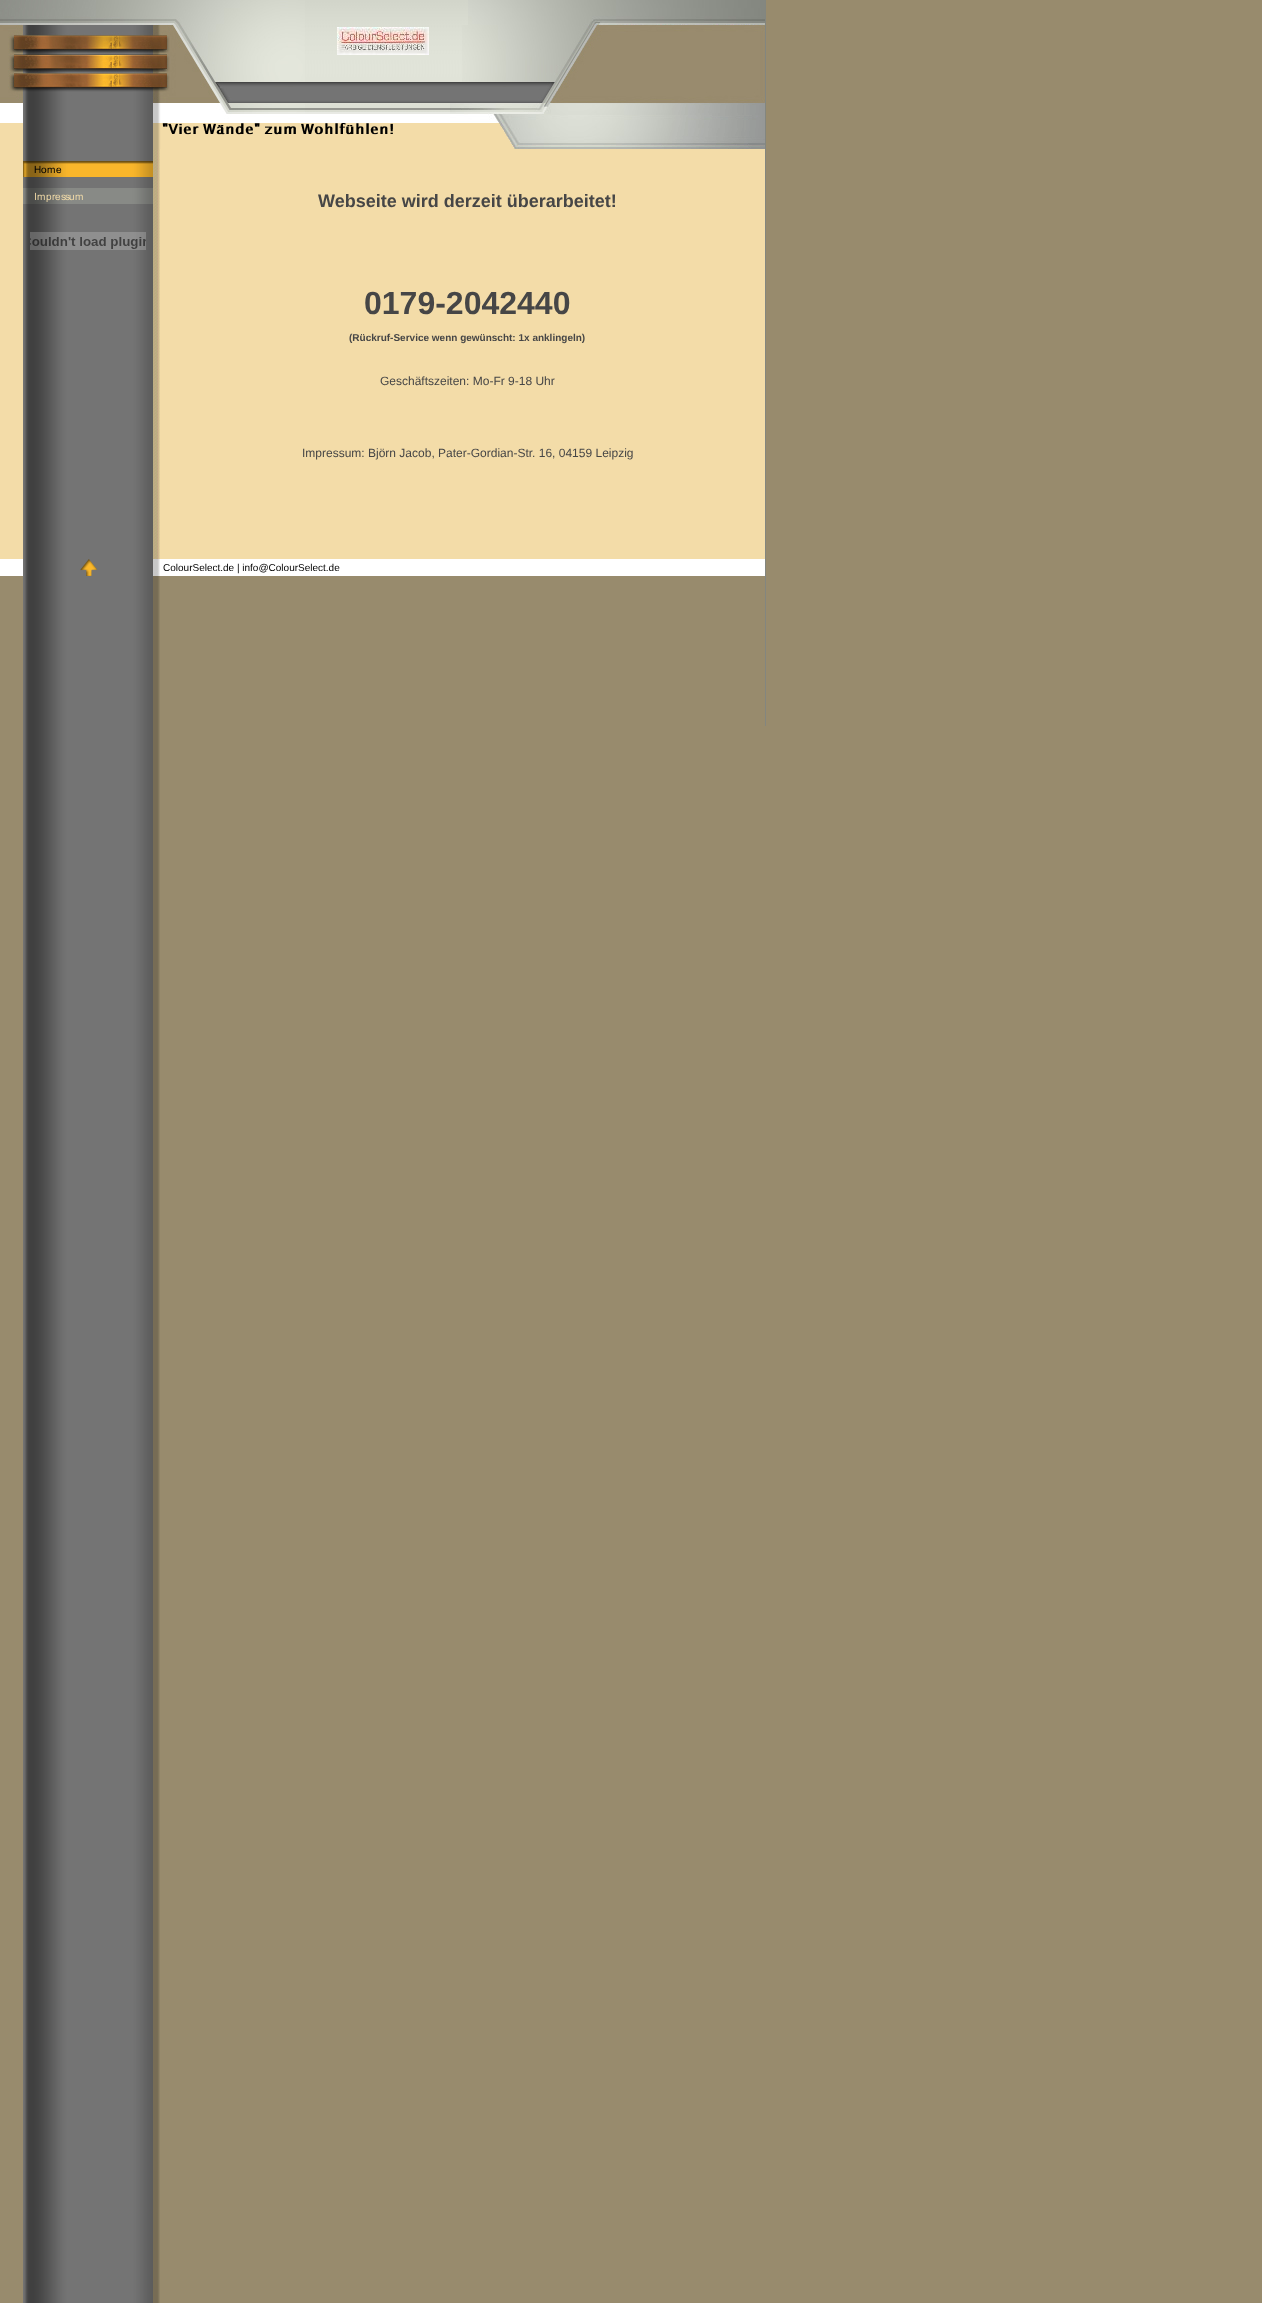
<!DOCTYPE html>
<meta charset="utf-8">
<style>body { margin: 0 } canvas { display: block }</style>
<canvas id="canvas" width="1262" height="2303"></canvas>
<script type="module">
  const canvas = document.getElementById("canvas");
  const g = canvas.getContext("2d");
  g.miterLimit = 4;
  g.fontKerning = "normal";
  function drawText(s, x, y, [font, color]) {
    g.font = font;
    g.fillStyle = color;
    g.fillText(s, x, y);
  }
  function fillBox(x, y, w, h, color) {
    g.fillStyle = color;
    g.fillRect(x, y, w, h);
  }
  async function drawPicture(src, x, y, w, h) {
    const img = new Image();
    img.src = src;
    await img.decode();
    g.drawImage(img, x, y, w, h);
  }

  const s1 = ["bold 18px Liberation Sans", "#464646"];
  const s2 = ["bold 32px Liberation Sans", "#464646"];
  const s3 = ["bold 10px Liberation Sans", "#464646"];
  const s4 = ["12px Liberation Sans", "#464646"];
  const s5 = ["10px Liberation Sans", "#000000"];

  fillBox(0, 0, 1262, 2303, "#988B6D");
  await drawPicture("pic1.png", 23, 726, 137, 1577);
  await drawPicture("pic2.png", 23, 149, 137, 577);
  await drawPicture("pic3.png", 305, 0, 163, 123);
  await drawPicture("pic4.png", 0, 0, 305, 123);
  await drawPicture("pic5.png", 337, 27, 92, 28);
  await drawPicture("pic6.png", 468, 0, 297, 25);
  await drawPicture("pic7.png", 462, 25, 303, 78);
  await drawPicture("pic8.png", 450, 103, 315, 46);
  await drawPicture("pic9.png", 23, 123, 130, 26);
  fillBox(393, 123, 57, 26, "#F3DCA8");
  await drawPicture("pic10.png", 153, 123, 240, 26);
  fillBox(765, 0, 1, 726, "#83867F");
  fillBox(0, 123, 23, 436, "#F3DCA8");
  await drawPicture("pic11.png", 153, 149, 7, 410);
  fillBox(160, 149, 605, 10, "#F3DCA8");
  await drawPicture("pic12.png", 23, 161, 130, 16);
  await drawPicture("pic13.png", 23, 188, 130, 16);
  await drawPicture("pic14.png", 30, 232, 116, 18);
  fillBox(160, 159, 605, 400, "#F3DCA8");
  drawText("Webseite wird derzeit überarbeitet!", 318, 207, s1);
  drawText("0179-2042440", 364, 314, s2);
  drawText("(Rückruf-Service wenn gewünscht: 1x anklingeln)", 349, 341, s3);
  drawText("Geschäftszeiten: Mo-Fr 9-18 Uhr", 380, 385, s4);
  drawText("Impressum: Björn Jacob, Pater-Gordian-Str. 16, 04159 Leipzig", 302, 457, s4);
  fillBox(0, 559, 23, 17, "#FFFFFF");
  await drawPicture("pic15.png", 80, 559, 17, 17);
  fillBox(160, 559, 605, 17, "#FFFFFF");
  await drawPicture("pic16.png", 153, 559, 7, 17);
  drawText("ColourSelect.de | info@ColourSelect.de", 163, 571, s5);
</script>
